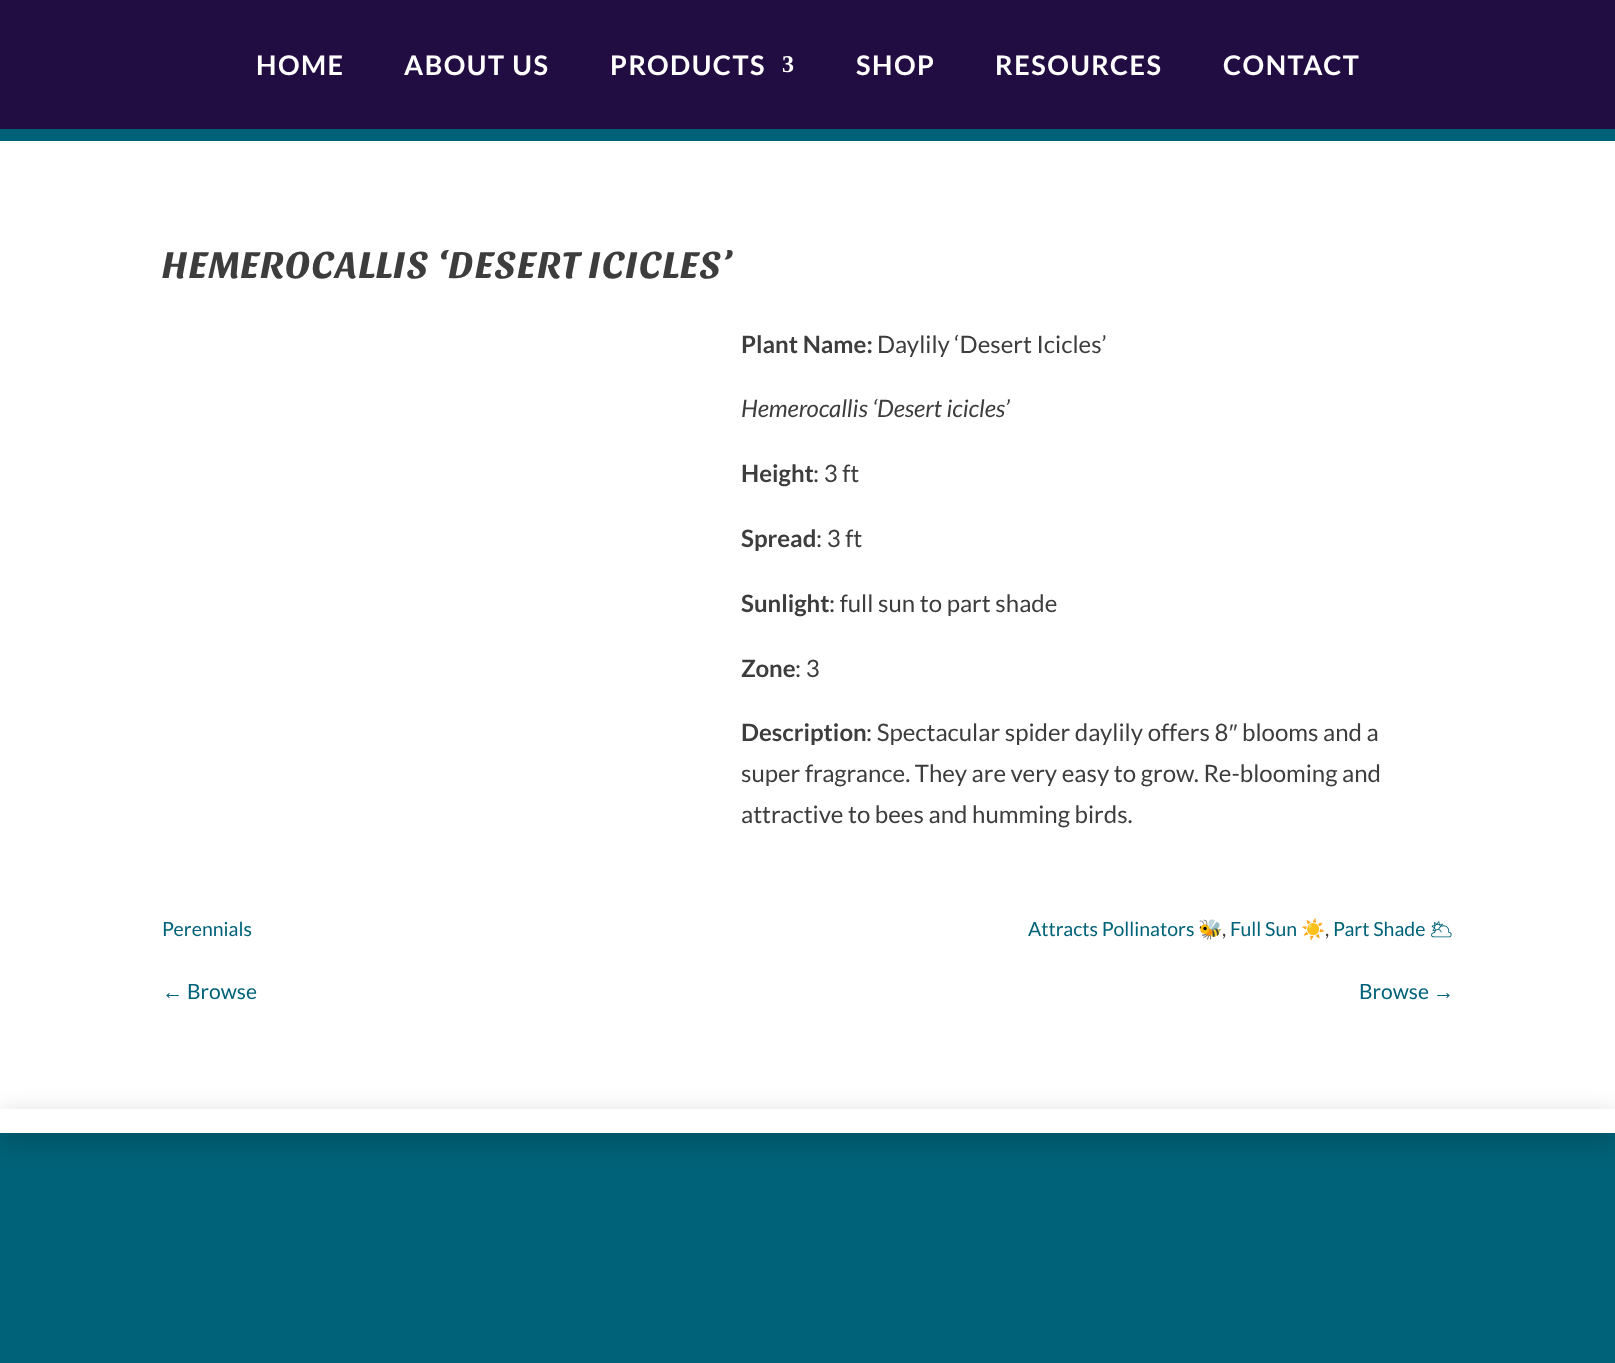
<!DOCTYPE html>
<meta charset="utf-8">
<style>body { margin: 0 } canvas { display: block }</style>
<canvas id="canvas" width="1615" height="1363"></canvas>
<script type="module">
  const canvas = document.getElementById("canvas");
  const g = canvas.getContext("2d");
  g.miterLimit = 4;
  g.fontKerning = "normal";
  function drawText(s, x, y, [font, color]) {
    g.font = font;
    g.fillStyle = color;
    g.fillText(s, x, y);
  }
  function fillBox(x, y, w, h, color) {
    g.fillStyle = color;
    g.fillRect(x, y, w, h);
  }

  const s1 = ["bold 27px Lato", "#FFFFFF"];
  const s2 = ["bold 24px Liberation Serif", "#FFFFFF"];
  const s3 = ["italic bold 39px Sansita", "#3D3D3D"];
  const s4 = ["bold 24px Lato", "#3D3D3D"];
  const s5 = ["24px Lato", "#3D3D3D"];
  const s6 = ["italic 24px Lato", "#3D3D3D"];
  const s7 = ["24px Liberation Sans", "#3D3D3D"];
  const s8 = ["19.5px Lato", "#006278"];
  const s9 = ["19.5px Noto Color Emoji", "#006278"];
  const s10 = ["19.5px Lato", "#3D3D3D"];
  const s11 = ["500 19.5px Noto Emoji", "#006278"];
  const s12 = ["21px Liberation Sans", "#006278"];
  const s13 = ["21px Lato", "#006278"];

  fillBox(0, 0, 1615, 1363, "#FFFFFF");
  fillBox(0, 129, 1615, 12, "#006278");
  fillBox(0, 0, 1615, 129, "#210D41");
  g.letterSpacing = "1.5px";
  drawText("HOME", 256, 75, s1);
  drawText("ABOUT US", 404, 75, s1);
  drawText("PRODUCTS", 610, 75, s1);
  drawText("3", 782, 72, s2);
  drawText("SHOP", 856, 75, s1);
  drawText("RESOURCES", 995, 75, s1);
  drawText("CONTACT", 1223, 75, s1);
  drawText("HEMEROCALLIS ‘DESERT ICICLES’", 162, 278, s3);
  g.letterSpacing = "0px";
  drawText("Plant Name:", 741, 353, s4);
  drawText("Daylily ‘Desert Icicles’", 877, 353, s5);
  drawText("Hemerocallis ‘Desert icicles’", 741, 417, s6);
  drawText("Height", 741, 482, s4);
  drawText(": 3 ft", 813, 482, s5);
  drawText("Spread", 741, 547, s4);
  drawText(": 3 ft", 816, 547, s5);
  drawText("Sunlight", 741, 612, s4);
  drawText(": full sun to part shade", 829, 612, s5);
  drawText("Zone", 741, 677, s4);
  drawText(": 3", 795, 677, s5);
  drawText("Description", 741, 741, s4);
  drawText(": Spectacular spider daylily offers 8", 866, 741, s5);
  drawText("″", 1229, 741, s7);
  drawText("blooms and a", 1242, 741, s5);
  drawText("super fragrance. They are very easy to grow. Re-blooming and", 741, 782, s5);
  drawText("attractive to bees and humming birds.", 741, 823, s5);
  drawText("Perennials", 162, 936, s8);
  drawText("Attracts Pollinators", 1028, 936, s8);
  drawText("🐝", 1198, 936, s9);
  drawText(",", 1222, 936, s10);
  drawText("Full Sun", 1230, 936, s8);
  drawText("☀️", 1301, 936, s9);
  drawText(",", 1325, 936, s10);
  drawText("Part Shade", 1333, 936, s8);
  drawText("🌥", 1429, 936, s11);
  drawText("←", 162, 999, s12);
  drawText("Browse", 187, 999, s13);
  drawText("Browse", 1359, 999, s13);
  drawText("→", 1433, 999, s12);
  fillBox(0, 1133, 1615, 230, "#006278");
  g.fillStyle = "rgba(0, 0, 0, 0.2)";
  g.filter = "blur(13.5px)";
  g.beginPath();
  g.rect(0, 1116, 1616, 24);
  g.fill();
  g.filter = "none";
  fillBox(0, 1109, 1615, 24, "#FFFFFF");
</script>
